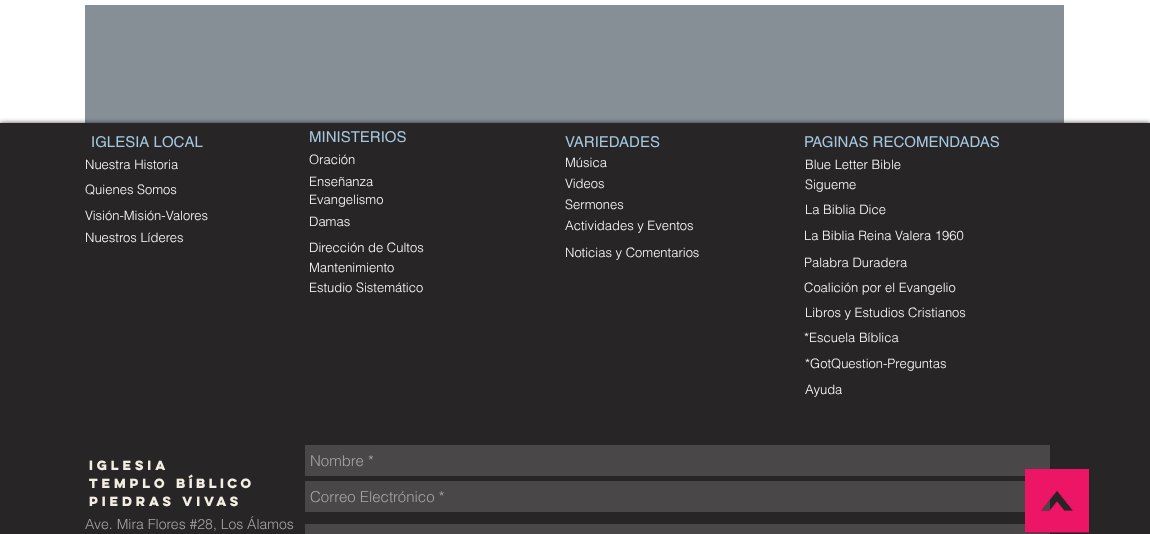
<!DOCTYPE html>
<meta charset="utf-8">
<style>body { margin: 0 } canvas { display: block }</style>
<canvas id="canvas" width="1150" height="534"></canvas>
<script type="module">
  const canvas = document.getElementById("canvas");
  const g = canvas.getContext("2d");
  g.miterLimit = 4;
  g.fontKerning = "normal";
  function drawText(s, x, y, [font, color]) {
    g.font = font;
    g.fillStyle = color;
    g.fillText(s, x, y);
  }
  function fillBox(x, y, w, h, color) {
    g.fillStyle = color;
    g.fillRect(x, y, w, h);
  }
  async function drawPicture(src, x, y, w, h) {
    const img = new Image();
    img.src = src;
    await img.decode();
    g.drawImage(img, x, y, w, h);
  }

  const s1 = ["15px helvetica", "#A5C8DE"];
  const s2 = ["300 13px helvetica", "#FFFFFF"];
  const s3 = ["300 15px helvetica", "#A9A5A8"];
  const s4 = ["300 14px helvetica", "#A9A5A8"];
  const s5 = ["bold 12px 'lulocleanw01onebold'", "#F3EEE1"];

  fillBox(0, 0, 1150, 534, "#FFFFFF");
  fillBox(85, 5, 979, 118, "#878F96");
  g.fillStyle = "rgba(0, 0, 0, 0.7)";
  g.filter = "blur(2.5px)";
  g.beginPath();
  g.rect(0, 123, 1150, 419);
  g.fill();
  g.filter = "none";
  fillBox(0, 123, 1150, 411, "#282527");
  drawText("IGLESIA LOCAL", 91, 147, s1);
  drawText("Nuestra Historia", 85, 169, s2);
  drawText("Quienes Somos", 85, 194, s2);
  drawText("Visión-Misión-Valores", 85, 220, s2);
  drawText("Nuestros Líderes", 85, 242, s2);
  drawText("MINISTERIOS", 309, 142, s1);
  drawText("Oración", 309, 164, s2);
  drawText("Enseñanza", 309, 186, s2);
  drawText("Evangelismo", 309, 204, s2);
  drawText("Damas", 309, 226, s2);
  drawText("Dirección de Cultos", 309, 252, s2);
  drawText("Mantenimiento", 309, 272, s2);
  drawText("Estudio Sistemático", 309, 292, s2);
  drawText("VARIEDADES", 565, 147, s1);
  drawText("Música", 565, 167, s2);
  drawText("Videos", 565, 188, s2);
  drawText("Sermones", 565, 209, s2);
  drawText("Actividades y Eventos", 565, 230, s2);
  drawText("Noticias y Comentarios", 565, 257, s2);
  drawText("PAGINAS RECOMENDADAS", 804, 147, s1);
  drawText("Blue Letter Bible", 805, 169, s2);
  drawText("Sigueme", 805, 189, s2);
  drawText("La Biblia Dice", 805, 214, s2);
  drawText("La Biblia Reina Valera 1960", 804, 240, s2);
  drawText("Palabra Duradera", 804, 267, s2);
  drawText("Coalición por el Evangelio", 804, 292, s2);
  drawText("Libros y Estudios Cristianos", 805, 317, s2);
  drawText("*Escuela Bíblica", 804, 342, s2);
  drawText("*GotQuestion-Preguntas", 805, 368, s2);
  drawText("Ayuda", 805, 394, s2);
  fillBox(305, 445, 745, 31, "#4A4749");
  drawText("Nombre *", 310, 466, s3);
  fillBox(305, 481, 745, 31, "#4A4749");
  drawText("Correo Electrónico *", 310, 502, s3);
  fillBox(305, 524, 745, 10, "#4A4749");
  drawText("Ave. Mira Flores #28, Los Álamos", 85, 529, s4);
  g.letterSpacing = "1.25px";
  drawText("iglesia", 89, 470, s5);
  drawText("Templo", 89, 488, s5);
  g.letterSpacing = "0.75px";
  drawText("bíblico", 176, 488, s5);
  g.letterSpacing = "1.25px";
  drawText("piedras vivas", 89, 506, s5);
  await drawPicture("pic1.png", 1025, 469, 64, 64);
</script>
